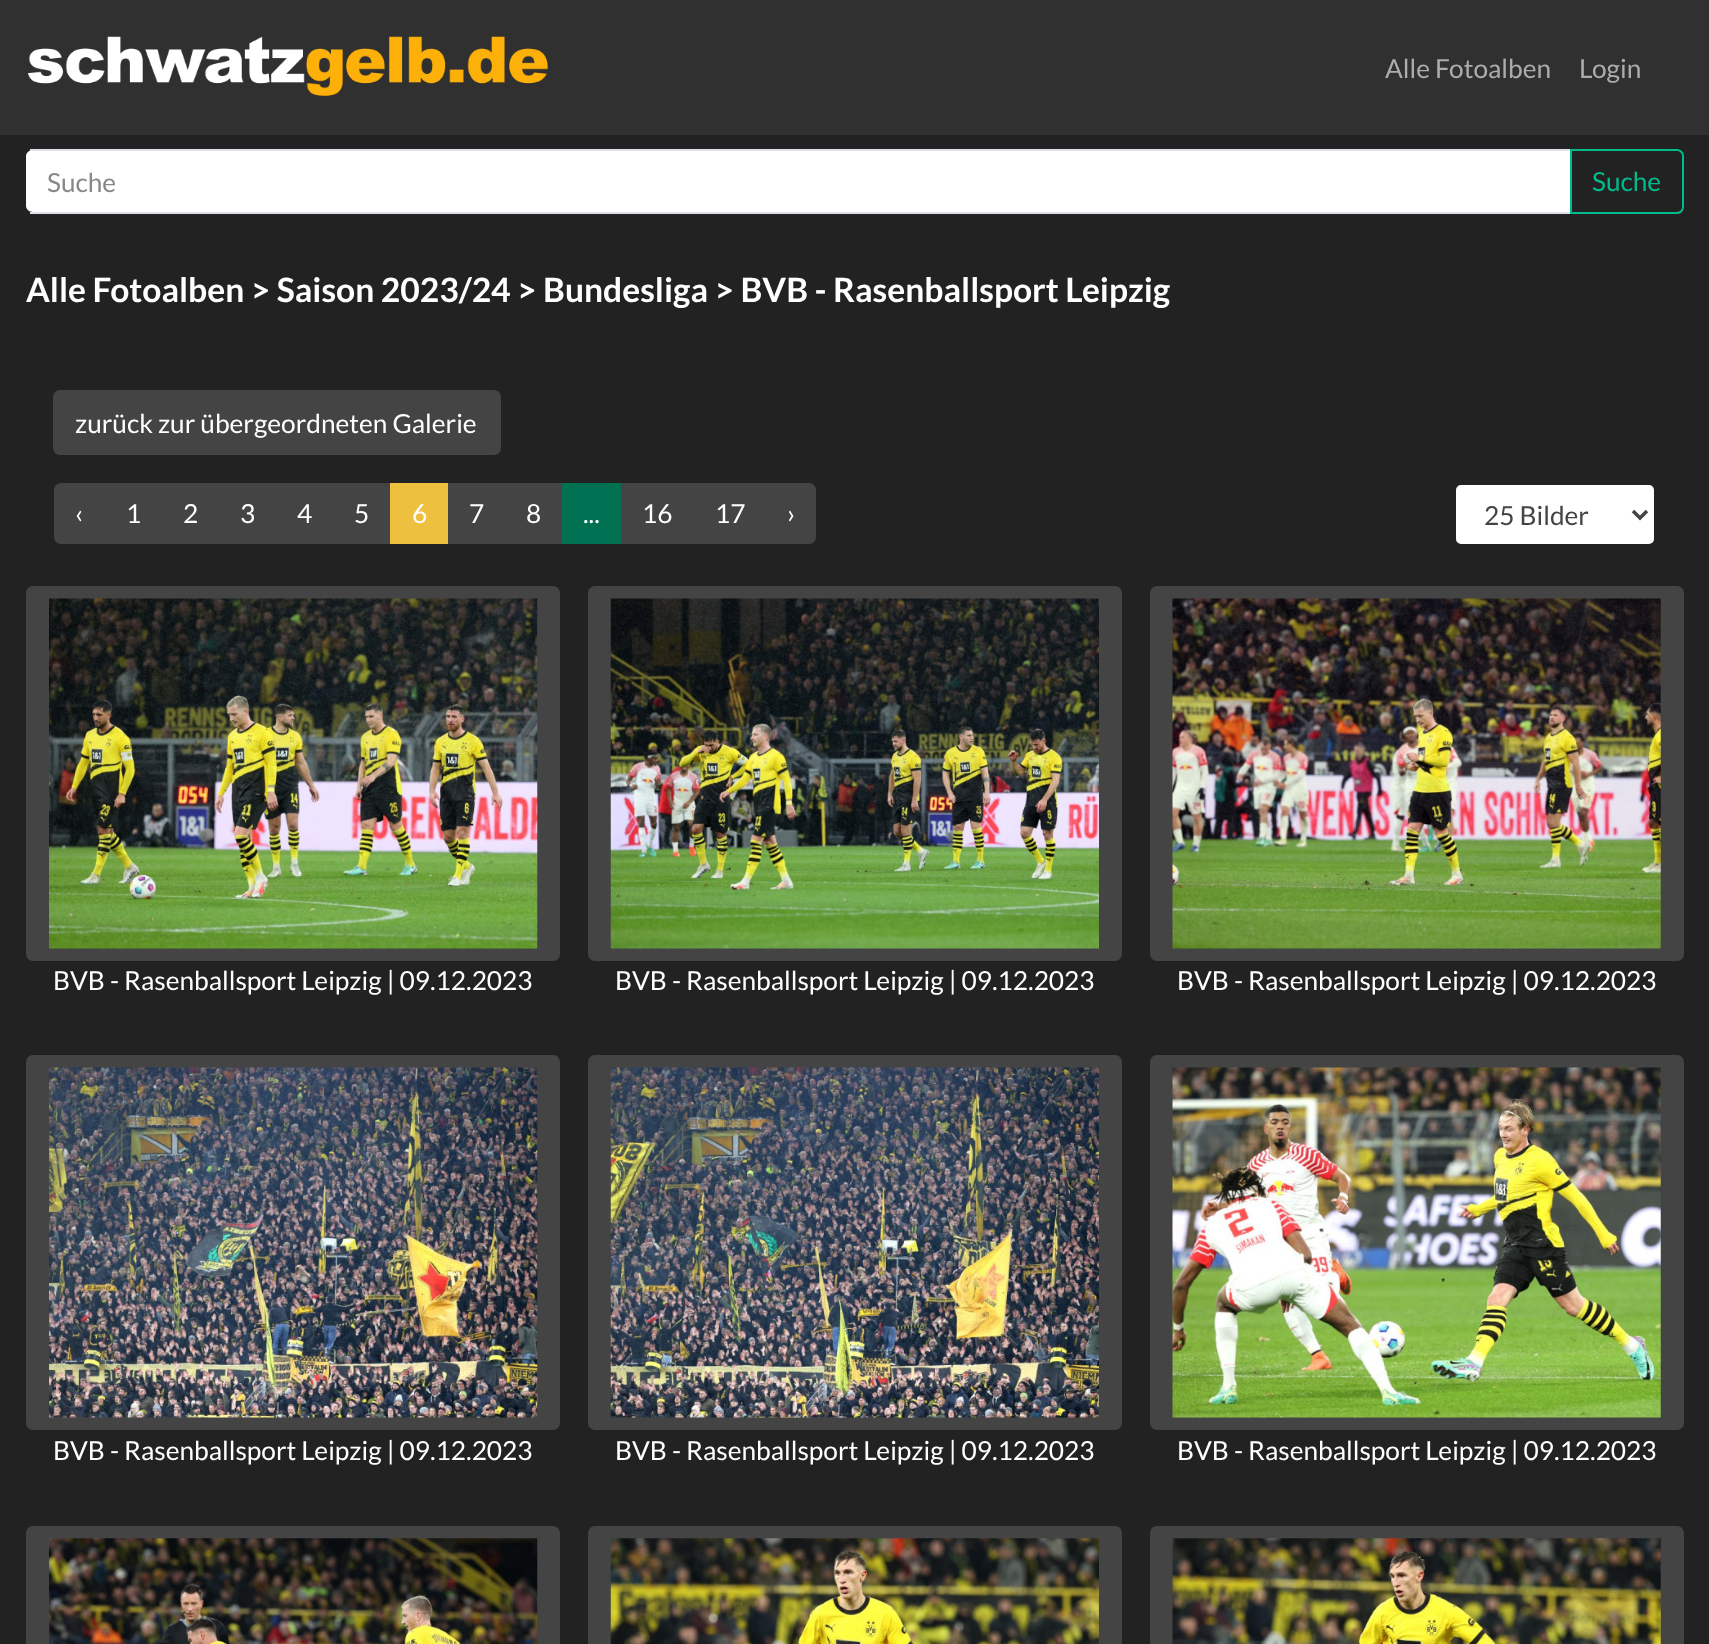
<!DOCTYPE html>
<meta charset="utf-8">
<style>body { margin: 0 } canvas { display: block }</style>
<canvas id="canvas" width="1709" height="1644"></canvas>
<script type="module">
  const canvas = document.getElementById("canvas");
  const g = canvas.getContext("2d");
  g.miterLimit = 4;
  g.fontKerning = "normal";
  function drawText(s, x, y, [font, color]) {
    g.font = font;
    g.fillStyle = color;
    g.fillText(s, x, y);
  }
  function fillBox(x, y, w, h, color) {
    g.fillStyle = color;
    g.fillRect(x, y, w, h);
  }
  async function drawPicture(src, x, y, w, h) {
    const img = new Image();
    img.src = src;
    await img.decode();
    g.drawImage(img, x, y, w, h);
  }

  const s1 = ["26.25px Lato", "#ACACAC"];
  const s2 = ["26.25px Lato", "#888888"];
  const s3 = ["26.25px Lato", "#00BC8C"];
  const s4 = ["bold 33.6px Lato", "#FFFFFF"];
  const s5 = ["26.25px Lato", "#FFFFFF"];
  const s6 = ["26.25px Lato", "#444444"];

  fillBox(0, 0, 1709, 1644, "#222222");
  fillBox(0, 0, 1709, 135, "#303030");
  await drawPicture("pic1.png", 28, 36, 520, 60);
  drawText("Alle Fotoalben", 1385, 78, s1);
  drawText("Login", 1579, 78, s1);
  g.fillStyle = "#FFFFFF";
  g.beginPath();
  g.moveTo(33, 150);
  g.lineTo(1570, 150);
  g.lineTo(1570, 212);
  g.lineTo(33, 212);
  g.bezierCurveTo(29, 212, 26, 209, 26, 206);
  g.lineTo(26, 156);
  g.bezierCurveTo(26, 153, 29, 150, 33, 150);
  g.closePath();
  g.fill();
  fillBox(30, 149, 1542, 2, "#DEE2E6");
  fillBox(30, 212, 1542, 2, "#DEE2E6");
  drawText("Suche", 47, 192, s2);
  g.beginPath();
  g.roundRect(1571, 150, 112, 63, [0, 6, 6, 0]);
  g.strokeStyle = "#00BC8C";
  g.lineWidth = 2;
  g.stroke();
  drawText("Suche", 1592, 191, s3);
  drawText("Alle Fotoalben > Saison 2023/24 > Bundesliga > BVB - Rasenballsport Leipzig", 26, 302, s4);
  g.fillStyle = "#444444";
  g.beginPath();
  g.roundRect(54, 391, 446, 63, 6);
  g.fill();
  g.strokeStyle = "#444444";
  g.stroke();
  drawText("zurück zur übergeordneten Galerie", 75, 433, s5);
  g.fillStyle = "#444444";
  g.beginPath();
  g.roundRect(54, 483, 51, 61, [7, 0, 0, 7]);
  g.fill();
  drawText("‹", 75, 523, s5);
  fillBox(105, 483, 285, 61, "#444444");
  drawText("1", 126, 523, s5);
  drawText("2", 183, 523, s5);
  drawText("3", 240, 523, s5);
  drawText("4", 297, 523, s5);
  drawText("5", 354, 523, s5);
  fillBox(390, 483, 58, 61, "#EDC13F");
  drawText("6", 412, 523, s5);
  fillBox(448, 483, 114, 61, "#444444");
  drawText("7", 469, 523, s5);
  drawText("8", 526, 523, s5);
  fillBox(562, 483, 59, 61, "#007053");
  drawText("...", 583, 523, s5);
  fillBox(621, 483, 146, 61, "#444444");
  drawText("16", 642, 523, s5);
  drawText("17", 715, 523, s5);
  g.fillStyle = "#444444";
  g.beginPath();
  g.roundRect(767, 483, 49, 61, [0, 7, 7, 0]);
  g.fill();
  drawText("›", 787, 523, s5);
  g.beginPath();
  g.roundRect(1455, 484, 200, 61, 6);
  g.fill();
  g.strokeStyle = "#222222";
  g.stroke();
  g.beginPath();
  g.moveTo(1633, 511);
  g.lineTo(1640, 518);
  g.lineTo(1647, 511);
  g.strokeStyle = "#444444";
  g.lineWidth = 3.5;
  g.stroke();
  drawText("25 Bilder", 1484, 525, s6);
  g.beginPath();
  g.roundRect(27, 587, 532, 373, 6);
  g.fill();
  g.lineWidth = 2;
  g.stroke();
  await drawPicture("pic2.png", 49, 598, 489, 351);
  drawText("BVB - Rasenballsport Leipzig | 09.12.2023", 53, 990, s5);
  g.fillStyle = "#444444";
  g.beginPath();
  g.roundRect(589, 587, 532, 373, 6);
  g.fill();
  g.stroke();
  await drawPicture("pic3.png", 610, 598, 489, 351);
  drawText("BVB - Rasenballsport Leipzig | 09.12.2023", 615, 990, s5);
  g.fillStyle = "#444444";
  g.beginPath();
  g.roundRect(1151, 587, 532, 373, 6);
  g.fill();
  g.stroke();
  await drawPicture("pic4.png", 1172, 598, 489, 351);
  drawText("BVB - Rasenballsport Leipzig | 09.12.2023", 1177, 990, s5);
  g.fillStyle = "#444444";
  g.beginPath();
  g.roundRect(27, 1056, 532, 373, 6);
  g.fill();
  g.stroke();
  await drawPicture("pic5.png", 49, 1067, 489, 351);
  drawText("BVB - Rasenballsport Leipzig | 09.12.2023", 53, 1460, s5);
  g.fillStyle = "#444444";
  g.beginPath();
  g.roundRect(589, 1056, 532, 373, 6);
  g.fill();
  g.stroke();
  await drawPicture("pic6.png", 610, 1067, 489, 351);
  drawText("BVB - Rasenballsport Leipzig | 09.12.2023", 615, 1460, s5);
  g.fillStyle = "#444444";
  g.beginPath();
  g.roundRect(1151, 1056, 532, 373, 6);
  g.fill();
  g.stroke();
  await drawPicture("pic7.png", 1172, 1067, 489, 351);
  drawText("BVB - Rasenballsport Leipzig | 09.12.2023", 1177, 1460, s5);
  g.fillStyle = "#444444";
  g.beginPath();
  g.roundRect(27, 1527, 532, 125, 6);
  g.fill();
  g.stroke();
  await drawPicture("pic8.png", 49, 1538, 489, 106);
  g.beginPath();
  g.roundRect(589, 1527, 532, 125, 6);
  g.fill();
  g.stroke();
  await drawPicture("pic9.png", 610, 1538, 489, 106);
  g.beginPath();
  g.roundRect(1151, 1527, 532, 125, 6);
  g.fill();
  g.stroke();
  await drawPicture("pic10.png", 1172, 1538, 489, 106);
</script>
